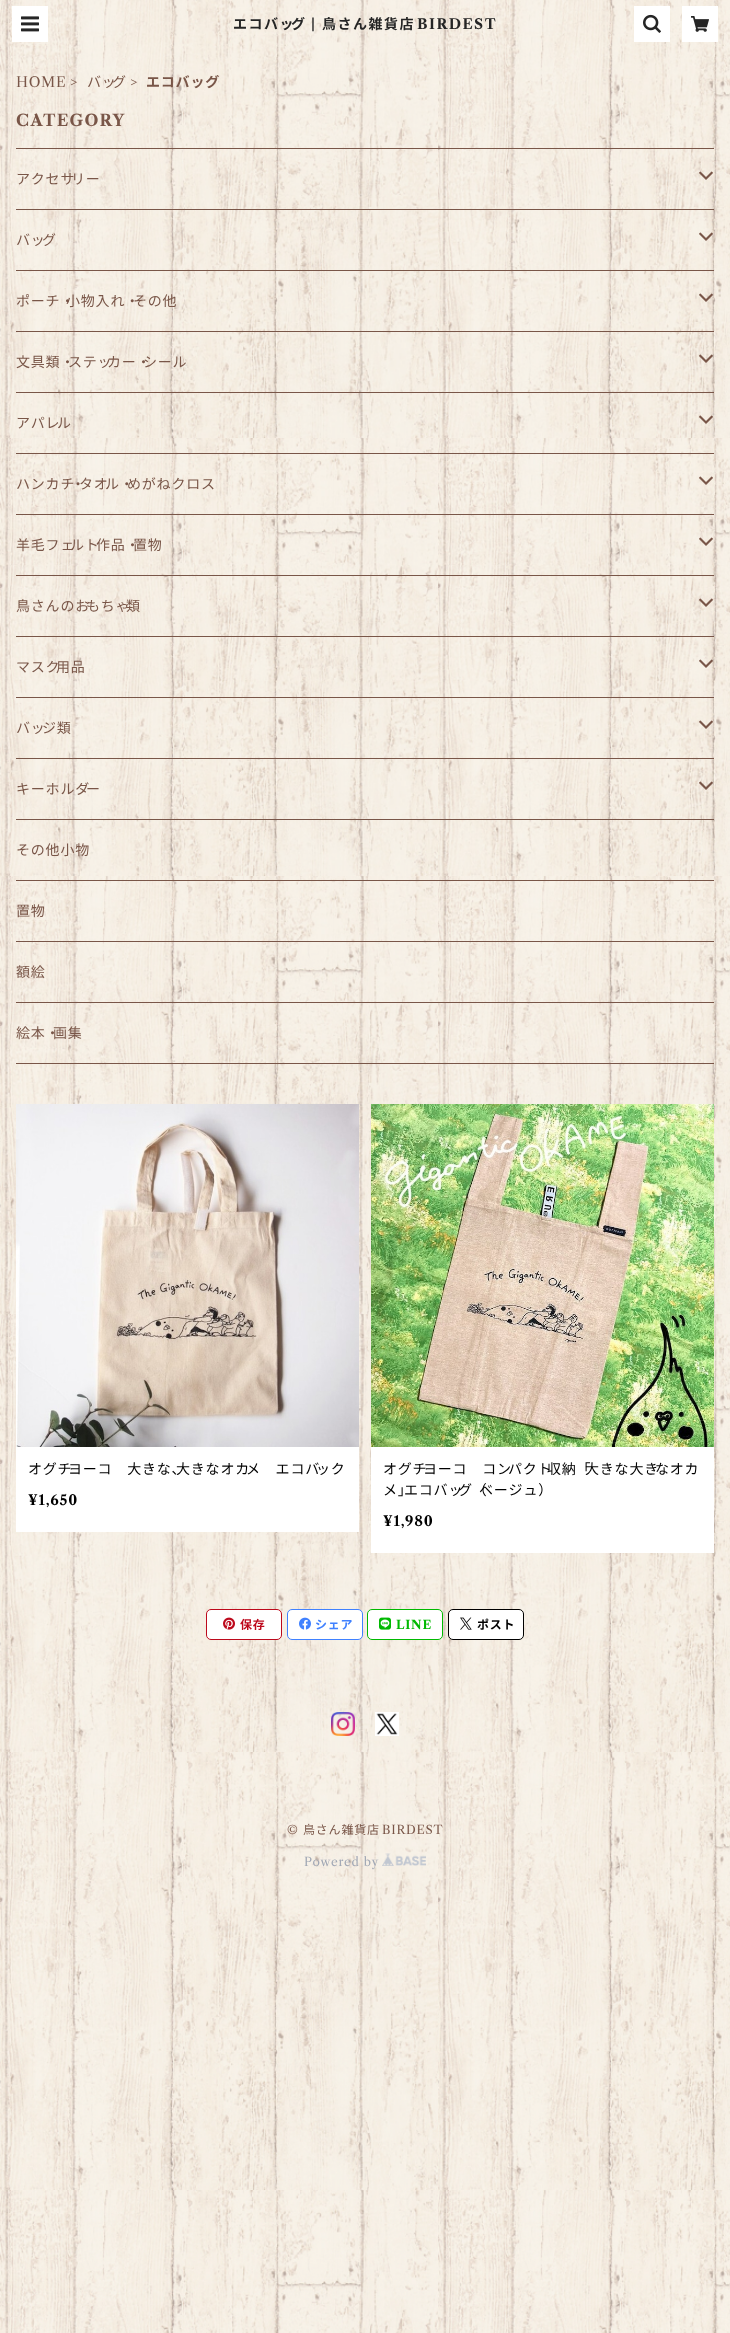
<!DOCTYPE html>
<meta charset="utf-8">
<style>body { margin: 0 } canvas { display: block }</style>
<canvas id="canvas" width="730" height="2333"></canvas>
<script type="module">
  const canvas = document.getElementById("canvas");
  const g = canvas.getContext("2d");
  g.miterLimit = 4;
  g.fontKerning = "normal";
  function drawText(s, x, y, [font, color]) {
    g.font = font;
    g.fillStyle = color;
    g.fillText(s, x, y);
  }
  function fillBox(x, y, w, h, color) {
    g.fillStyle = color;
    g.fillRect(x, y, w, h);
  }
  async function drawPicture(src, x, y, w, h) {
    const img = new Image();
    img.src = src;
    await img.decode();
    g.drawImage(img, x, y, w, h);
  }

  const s1 = ["bold 14px Noto Sans JP", "#252525"];
  const s2 = ["bold 14px Libre Caslon Text", "#252525"];
  const s3 = ["14px Libre Caslon Text", "#795648"];
  const s4 = ["14px Noto Sans JP", "#795648"];
  const s5 = ["bold 14px Noto Sans JP", "#795648"];
  const s6 = ["bold 16px Libre Caslon Text", "#795648"];
  const s7 = ["14px Noto Sans JP", "#000000"];
  const s8 = ["bold 14px Libre Caslon Text", "#000000"];
  const s9 = ["bold 12px Noto Sans JP", "#BD091C"];
  const s10 = ["bold 12px Noto Sans JP", "#4081FF"];
  const s11 = ["bold 12px Libre Caslon Text", "#00B901"];
  const s12 = ["bold 12px Noto Sans JP", "#000000"];
  const s13 = ["12px Libre Caslon Text", "#795648"];
  const s14 = ["12px Noto Sans JP", "#795648"];
  const s15 = ["12px Libre Caslon Text", "#A0A7B4"];

  fillBox(0, 0, 730, 2333, "#FFFFFF");
  await drawPicture("pic1.png", 0, 0, 730, 2333);
  fillBox(12, 6, 36, 36, "#FFFFFF");
  await drawPicture("pic2.png", 21, 16, 18, 16);
  g.letterSpacing = "1.5px";
  drawText("エコバッ", 233, 29, s1);
  drawText("グ", 291, 29, s1);
  drawText("|", 311, 29, s2);
  drawText("鳥さん雑貨店", 322, 29, s1);
  drawText("BIRDEST", 417, 29, s2);
  fillBox(634, 6, 36, 36, "#FFFFFF");
  await drawPicture("pic3.png", 643, 14, 18, 19);
  fillBox(682, 6, 36, 36, "#FFFFFF");
  await drawPicture("pic4.png", 691, 16, 18, 16);
  g.letterSpacing = "0.8px";
  drawText("HOME", 16, 87, s3);
  drawText(">", 70, 87, s3);
  drawText("バッ", 87, 87, s4);
  drawText("グ", 112, 87, s4);
  drawText(">", 130, 87, s3);
  drawText("エコバッグ", 146, 87, s5);
  g.letterSpacing = "1.25px";
  drawText("CATEGORY", 16, 126, s6);
  fillBox(16, 148, 698, 1, "#795648");
  fillBox(16, 1063, 698, 1, "#795648");
  g.letterSpacing = "0.8px";
  drawText("アクセサ", 16, 184, s4);
  drawText("リー", 71, 184, s4);
  await drawPicture("pic5.png", 699, 171, 14, 9);
  fillBox(16, 209, 698, 1, "#795648");
  drawText("バッ", 16, 245, s4);
  drawText("グ", 42, 245, s4);
  await drawPicture("pic6.png", 699, 232, 14, 9);
  fillBox(16, 270, 698, 1, "#795648");
  drawText("ポーチ・", 16, 306, s4);
  drawText("小物入れ・", 66, 306, s4);
  drawText("その他", 133, 306, s4);
  await drawPicture("pic7.png", 699, 293, 14, 9);
  fillBox(16, 331, 698, 1, "#795648");
  drawText("文具類・", 16, 367, s4);
  drawText("ステッ", 68, 367, s4);
  drawText("カー・", 107, 367, s4);
  drawText("シール", 143, 367, s4);
  await drawPicture("pic8.png", 699, 354, 14, 9);
  fillBox(16, 392, 698, 1, "#795648");
  drawText("アパレ", 16, 428, s4);
  drawText("ル", 57, 428, s4);
  await drawPicture("pic9.png", 699, 415, 14, 9);
  fillBox(16, 453, 698, 1, "#795648");
  drawText("ハンカチ", 16, 489, s4);
  drawText("・", 71, 489, s4);
  drawText("タオ", 79, 489, s4);
  drawText("ル・", 105, 489, s4);
  drawText("めがねクロス", 127, 489, s4);
  await drawPicture("pic10.png", 699, 476, 14, 9);
  fillBox(16, 514, 698, 1, "#795648");
  drawText("羊毛フェ", 16, 550, s4);
  drawText("ルト", 70, 550, s4);
  drawText("作品・", 96, 550, s4);
  drawText("置物", 133, 550, s4);
  await drawPicture("pic11.png", 699, 537, 14, 9);
  fillBox(16, 575, 698, 1, "#795648");
  drawText("鳥さんのお", 16, 611, s4);
  drawText("もちゃ", 86, 611, s4);
  drawText("類", 126, 611, s4);
  await drawPicture("pic12.png", 699, 598, 14, 9);
  fillBox(16, 636, 698, 1, "#795648");
  drawText("マスク", 16, 672, s4);
  drawText("用品", 56, 672, s4);
  await drawPicture("pic13.png", 699, 659, 14, 9);
  fillBox(16, 697, 698, 1, "#795648");
  drawText("バッ", 16, 733, s4);
  drawText("ジ類", 42, 733, s4);
  await drawPicture("pic14.png", 699, 720, 14, 9);
  fillBox(16, 758, 698, 1, "#795648");
  drawText("キーホルダ", 16, 794, s4);
  drawText("ー", 86, 794, s4);
  await drawPicture("pic15.png", 699, 781, 14, 9);
  fillBox(16, 819, 698, 1, "#795648");
  drawText("その他小物", 16, 855, s4);
  fillBox(16, 880, 698, 1, "#795648");
  drawText("置物", 16, 916, s4);
  fillBox(16, 941, 698, 1, "#795648");
  drawText("額絵", 16, 977, s4);
  fillBox(16, 1002, 698, 1, "#795648");
  drawText("絵本・", 16, 1038, s4);
  drawText("画集", 53, 1038, s4);
  fillBox(16, 1447, 343, 85, "#FFFFFF");
  await drawPicture("pic16.png", 16, 1104, 343, 343);
  drawText("オグチ", 28, 1474, s7);
  drawText("ヨーコ　大きな、", 68, 1474, s7);
  drawText("大きなオカ", 176, 1474, s7);
  drawText("メ　エコバ", 246, 1474, s7);
  drawText("ック", 316, 1474, s7);
  drawText("¥1,650", 28, 1505, s8);
  fillBox(371, 1447, 343, 106, "#FFFFFF");
  await drawPicture("pic17.png", 371, 1104, 343, 343);
  drawText("オグチ", 383, 1474, s7);
  drawText("ヨーコ　コン", 423, 1474, s7);
  drawText("パクト", 508, 1474, s7);
  drawText("収納「", 547, 1474, s7);
  drawText("大きな大き", 585, 1474, s7);
  drawText("なオカ", 655, 1474, s7);
  drawText("メ」", 383, 1495, s7);
  drawText("エコバッ", 404, 1495, s7);
  drawText("グ（", 458, 1495, s7);
  drawText("ベージュ）", 479, 1495, s7);
  drawText("¥1,980", 383, 1526, s8);
  g.fillStyle = "#FFFFFF";
  g.beginPath();
  g.roundRect(206.5, 1609.5, 75, 30, 4.5);
  g.fill();
  g.strokeStyle = "#BD091C";
  g.stroke();
  await drawPicture("pic18.png", 223, 1617, 12, 13);
  drawText("保存", 240, 1629, s9);
  g.fillStyle = "#FFFFFF";
  g.beginPath();
  g.roundRect(287.5, 1609.5, 75, 30, 4.5);
  g.fill();
  g.strokeStyle = "#4081FF";
  g.stroke();
  await drawPicture("pic19.png", 299, 1617, 12, 13);
  drawText("シェア", 315, 1629, s10);
  g.fillStyle = "#FFFFFF";
  g.beginPath();
  g.roundRect(367.5, 1609.5, 75, 30, 4.5);
  g.fill();
  g.strokeStyle = "#00B901";
  g.stroke();
  await drawPicture("pic20.png", 379, 1617, 12, 13);
  drawText("LINE", 396, 1629, s11);
  g.fillStyle = "#FFFFFF";
  g.beginPath();
  g.roundRect(448.5, 1609.5, 75, 30, 4.5);
  g.fill();
  g.strokeStyle = "#000000";
  g.stroke();
  await drawPicture("pic21.png", 460, 1617, 12, 13);
  drawText("ポスト", 477, 1629, s12);
  await drawPicture("pic22.png", 331, 1712, 24, 24);
  await drawPicture("pic23.png", 375, 1712, 24, 24);
  drawText("©", 287, 1834, s13);
  drawText("鳥さん雑貨店", 303, 1834, s14);
  drawText("BIRDEST", 382, 1834, s13);
  drawText("Powered by", 304, 1866, s15);
  await drawPicture("pic24.png", 382, 1853, 44, 13);
</script>
